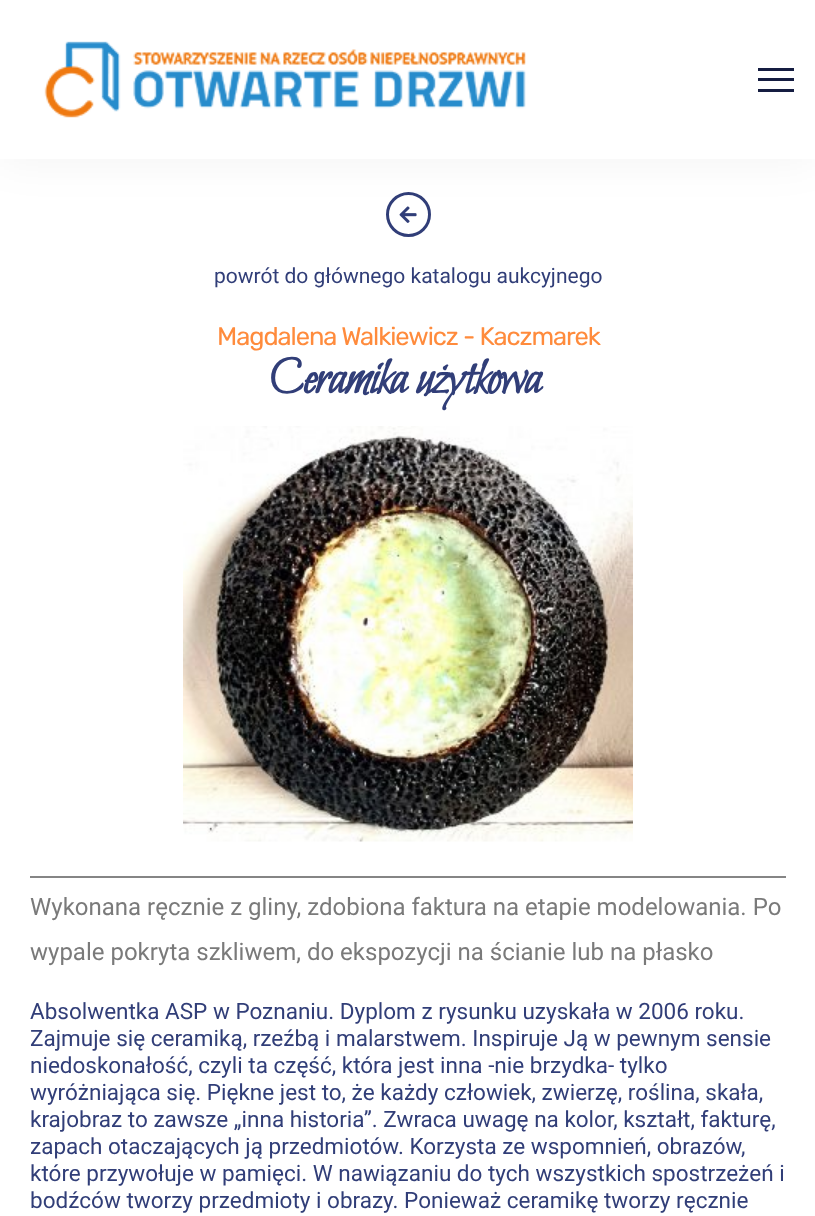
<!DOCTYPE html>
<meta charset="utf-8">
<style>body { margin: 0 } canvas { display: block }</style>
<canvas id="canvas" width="815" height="1216"></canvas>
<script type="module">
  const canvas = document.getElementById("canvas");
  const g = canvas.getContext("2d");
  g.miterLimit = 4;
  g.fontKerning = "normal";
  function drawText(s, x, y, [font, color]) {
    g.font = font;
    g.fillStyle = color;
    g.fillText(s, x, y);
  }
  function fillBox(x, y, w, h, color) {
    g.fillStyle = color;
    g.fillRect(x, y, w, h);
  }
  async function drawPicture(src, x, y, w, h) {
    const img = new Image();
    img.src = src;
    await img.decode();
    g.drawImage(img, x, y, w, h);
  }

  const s1 = ["21px Roboto", "#313E78"];
  const s2 = ["25.5px Rubik", "#FF8B3C"];
  const s3 = ["bold 52.5px Bilbo", "#313E78"];
  const s4 = ["24px Roboto", "#7A7A7A"];
  const s5 = ["22.5px Roboto", "#313E78"];

  fillBox(0, 0, 815, 1216, "#FFFFFF");
  g.beginPath();
  g.arc(408.5, 214.5, 21, 0, Math.PI * 2);
  g.strokeStyle = "#313E78";
  g.lineWidth = 3;
  g.stroke();
  await drawPicture("pic2.png", 399, 206, 18, 17);
  g.fillStyle = "rgba(0, 0, 0, 0.05)";
  g.filter = "blur(22.5px)";
  g.beginPath();
  g.rect(0, 0, 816, 159);
  g.fill();
  g.filter = "none";
  fillBox(0, 0, 815, 159, "#FFFFFF");
  await drawPicture("pic1.png", 44, 41, 482, 77);
  fillBox(758, 68, 36, 3, "#151D41");
  fillBox(758, 78, 36, 3, "#151D41");
  fillBox(758, 89, 36, 3, "#151D41");
  drawText("powrót do głównego katalogu aukcyjnego", 214, 283, s1);
  g.letterSpacing = "-1.05px";
  drawText("Magdalena Walkiewicz - Kaczmarek", 217, 345, s2);
  drawText("Ceramika użytkowa", 268, 393, s3);
  await drawPicture("pic3.png", 183, 426, 450, 416);
  fillBox(30, 876, 756, 2, "#858585");
  g.letterSpacing = "0px";
  drawText("Wykonana ręcznie z gliny, zdobiona faktura na etapie modelowania. Po", 30, 915, s4);
  drawText("wypale pokryta szkliwem, do ekspozycji na ścianie lub na płasko", 30, 960, s4);
  drawText("Absolwentka ASP w Poznaniu. Dyplom z rysunku uzyskała w 2006 roku.", 30, 1019, s5);
  drawText("Zajmuje się ceramiką, rzeźbą i malarstwem. Inspiruje Ją w pewnym sensie", 30, 1046, s5);
  drawText("niedoskonałość, czyli ta część, która jest inna -nie brzydka- tylko", 30, 1073, s5);
  drawText("wyróżniająca się. Piękne jest to, że każdy człowiek, zwierzę, roślina, skała,", 30, 1100, s5);
  drawText("krajobraz to zawsze „inna historia”. Zwraca uwagę na kolor, kształt, fakturę,", 30, 1127, s5);
  drawText("zapach otaczających ją przedmiotów. Korzysta ze wspomnień, obrazów,", 30, 1154, s5);
  drawText("które przywołuje w pamięci. W nawiązaniu do tych wszystkich spostrzeżeń i", 30, 1181, s5);
  drawText("bodźców tworzy przedmioty i obrazy. Ponieważ ceramikę tworzy ręcznie", 30, 1208, s5);
</script>
